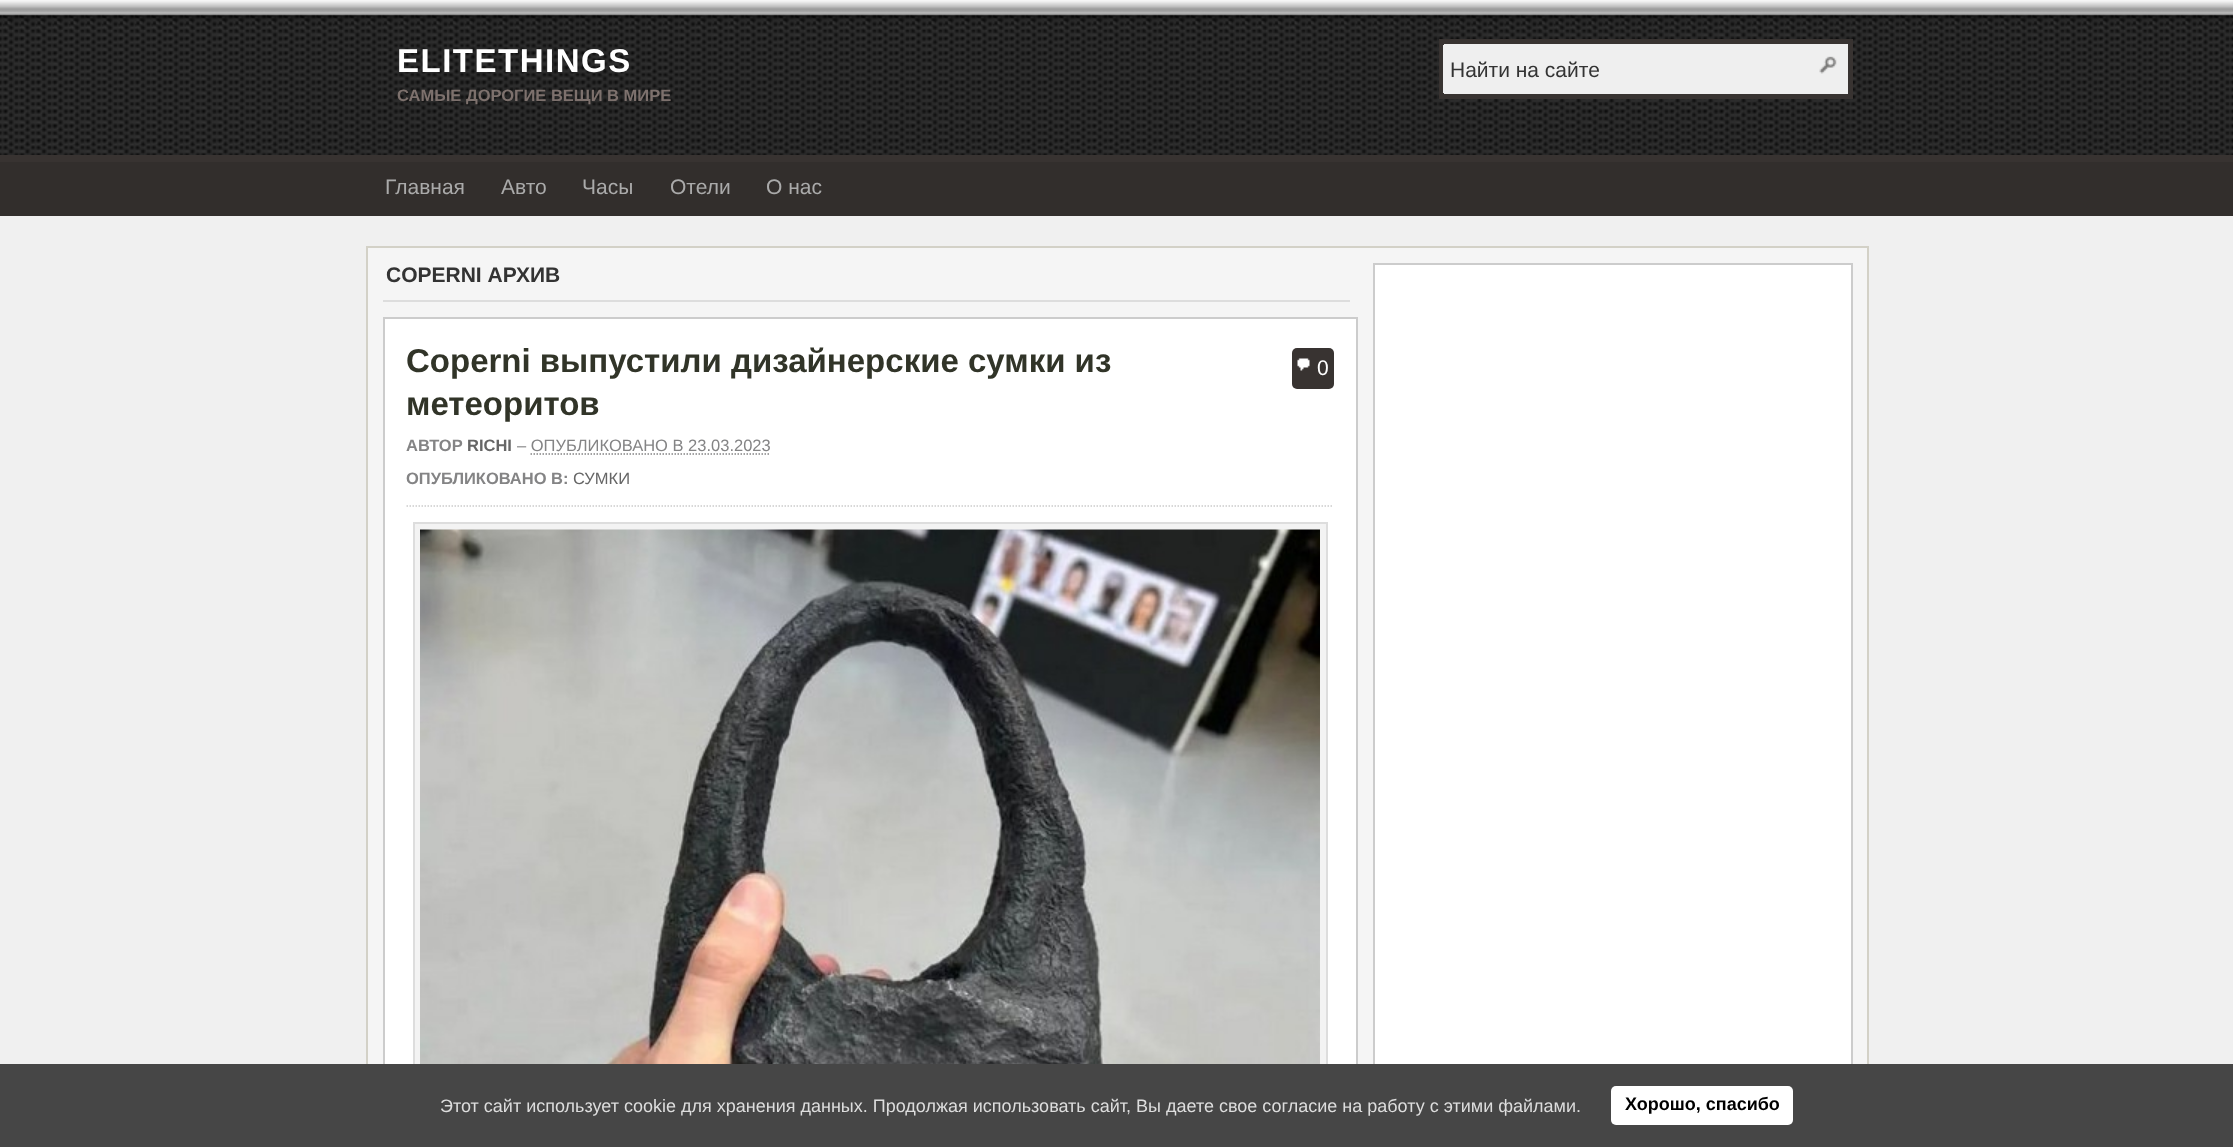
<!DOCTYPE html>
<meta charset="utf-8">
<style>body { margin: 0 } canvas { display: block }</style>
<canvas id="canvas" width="2233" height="1147"></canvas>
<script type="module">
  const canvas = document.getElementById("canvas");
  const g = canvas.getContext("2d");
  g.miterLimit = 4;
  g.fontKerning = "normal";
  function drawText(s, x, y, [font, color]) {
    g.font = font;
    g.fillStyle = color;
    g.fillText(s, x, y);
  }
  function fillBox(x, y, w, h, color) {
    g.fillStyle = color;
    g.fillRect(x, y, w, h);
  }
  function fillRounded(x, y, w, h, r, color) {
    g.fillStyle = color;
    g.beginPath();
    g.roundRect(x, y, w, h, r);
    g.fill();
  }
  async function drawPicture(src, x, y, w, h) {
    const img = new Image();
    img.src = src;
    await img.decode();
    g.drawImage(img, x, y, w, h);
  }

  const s1 = ["bold 33px Liberation Sans", "#FFFFFF"];
  const s2 = ["bold 16.5px Liberation Sans", "#7D716D"];
  const s3 = ["21px Liberation Sans", "#333333"];
  const s4 = ["21px Liberation Sans", "#AAAAAA"];
  const s5 = ["bold 21px Liberation Sans", "#333333"];
  const s6 = ["bold 33px Liberation Sans", "#313428"];
  const s7 = ["21px Liberation Sans", "#FFFFFF"];
  const s8 = ["bold 16.5px Liberation Sans", "#848485"];
  const s9 = ["bold 16.5px Liberation Sans", "#666666"];
  const s10 = ["16.5px Liberation Sans", "#848485"];
  const s11 = ["16.5px Liberation Sans", "#666666"];
  const s12 = ["18px Liberation Sans", "#DDDDDD"];
  const s13 = ["bold 18px Liberation Sans", "#000000"];

  fillBox(0, 0, 2233, 1147, "#F0F0F0");
  await drawPicture("pic1.png", 0, 0, 2233, 155);
  fillBox(0, 155, 2233, 7, "#383331");
  g.letterSpacing = "1.5px";
  drawText("ELITETHINGS", 397, 72, s1);
  g.letterSpacing = "0px";
  drawText("САМЫЕ ДОРОГИЕ ВЕЩИ В МИРЕ", 397, 101, s2);
  g.fillStyle = "#EFEFEF";
  g.beginPath();
  g.rect(1441.5, 41.5, 409, 55);
  g.fill();
  g.strokeStyle = "#383331";
  g.lineWidth = 5;
  g.stroke();
  fillBox(1443, 45, 1, 48, "#EFEFEF");
  drawText("Найти на сайте", 1450, 77, s3);
  await drawPicture("pic2.png", 1819, 56, 18, 18);
  fillBox(0, 162, 2233, 54, "#322E2C");
  drawText("Главная", 385, 194, s4);
  drawText("Авто", 501, 194, s4);
  drawText("Часы", 582, 194, s4);
  drawText("Отели", 670, 194, s4);
  drawText("О нас", 766, 194, s4);
  fillBox(368, 248, 1499, 816, "#F5F5F5");
  g.strokeStyle = "#D3D1C7";
  g.lineWidth = 2;
  g.strokeRect(367, 247, 1501, 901);
  fillBox(383, 300, 967, 2, "#DDDDDD");
  drawText("COPERNI АРХИВ", 386, 282, s5);
  fillBox(385, 319, 971, 745, "#FFFFFF");
  g.strokeStyle = "#CCCCCC";
  g.strokeRect(384, 318, 973, 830);
  drawText("Coperni выпустили дизайнерские сумки из", 406, 372, s6);
  drawText("метеоритов", 406, 415, s6);
  fillRounded(1292, 348, 42, 41, 5, "#383331");
  await drawPicture("pic3.png", 1297, 358, 13, 13);
  drawText("0", 1317, 375, s7);
  g.beginPath();
  g.moveTo(406.5, 506);
  g.lineTo(1333.5, 506);
  g.lineWidth = 1.5;
  g.setLineDash([1.5, 1.5]);
  g.stroke();
  drawText("АВТОР", 406, 451, s8);
  drawText("RICHI", 467, 451, s9);
  drawText("– ОПУБЛИКОВАНО В 23.03.2023", 517, 451, s10);
  g.beginPath();
  g.moveTo(530.5, 454);
  g.lineTo(770.5, 454);
  g.strokeStyle = "#848485";
  g.stroke();
  drawText("ОПУБЛИКОВАНО В:", 406, 484, s8);
  drawText("СУМКИ", 573, 484, s11);
  fillBox(415, 524, 911, 540, "#F3F3F3");
  g.strokeStyle = "#DDDDDD";
  g.lineWidth = 2;
  g.setLineDash([]);
  g.strokeRect(414, 523, 913, 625);
  await drawPicture("pic4.png", 420, 529, 900, 535);
  fillBox(1375, 265, 476, 799, "#FFFFFF");
  g.strokeStyle = "#CCCCCC";
  g.strokeRect(1374, 264, 478, 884);
  fillBox(0, 1064, 2233, 83, "#464646");
  drawText("Этот сайт использует cookie для хранения данных. Продолжая использовать сайт, Вы даете свое согласие на работу с этими файлами.", 440, 1112, s12);
  fillRounded(1611, 1086, 182, 39, 5, "#FFFFFF");
  drawText("Хорошо, спасибо", 1625, 1110, s13);
</script>
